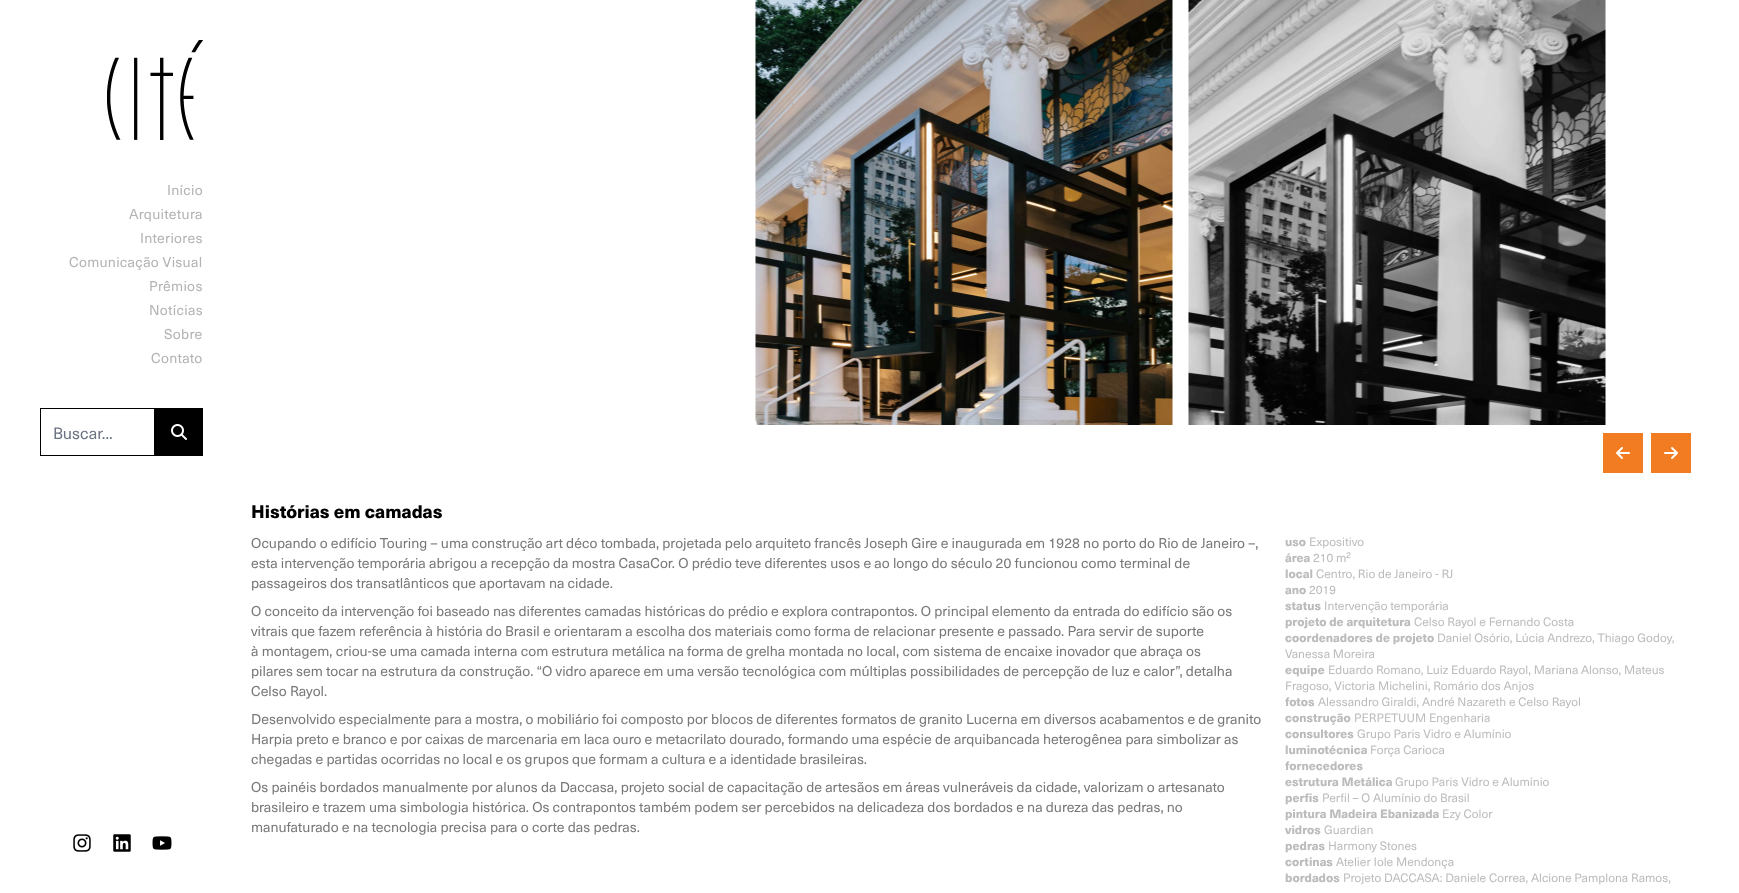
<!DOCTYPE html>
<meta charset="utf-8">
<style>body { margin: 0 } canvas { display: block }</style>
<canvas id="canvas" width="1739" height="893"></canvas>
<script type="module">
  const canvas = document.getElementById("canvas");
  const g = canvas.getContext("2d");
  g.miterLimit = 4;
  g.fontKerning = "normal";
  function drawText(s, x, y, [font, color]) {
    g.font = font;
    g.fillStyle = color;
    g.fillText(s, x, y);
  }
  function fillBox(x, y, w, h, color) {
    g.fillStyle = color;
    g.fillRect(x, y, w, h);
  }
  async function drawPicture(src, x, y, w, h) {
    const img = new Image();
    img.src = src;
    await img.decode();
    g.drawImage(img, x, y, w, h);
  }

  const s1 = ["14px 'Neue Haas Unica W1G'", "#B3B3B3"];
  const s2 = ["16px 'Neue Haas Unica W1G'", "#6B7280"];
  const s3 = ["900 18px 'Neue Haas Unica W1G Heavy'", "#000000"];
  const s4 = ["14px 'Neue Haas Unica W1G'", "#787878"];
  const s5 = ["900 12px 'Neue Haas Unica W1G Heavy'", "#BCBCBC"];
  const s6 = ["12px 'Neue Haas Unica W1G'", "#BCBCBC"];

  fillBox(0, 0, 1739, 893, "#FFFFFF");
  await drawPicture("pic1.png", 107, 40, 96, 100);
  g.letterSpacing = "0.3px";
  drawText("Início", 167, 195, s1);
  drawText("Arquitetura", 129, 219, s1);
  drawText("Interiores", 140, 243, s1);
  drawText("Comunicação Visual", 69, 267, s1);
  drawText("Prêmios", 149, 291, s1);
  drawText("Notícias", 149, 315, s1);
  drawText("Sobre", 164, 339, s1);
  drawText("Contato", 151, 363, s1);
  g.strokeStyle = "#000000";
  g.strokeRect(40.5, 408.5, 114, 47);
  g.letterSpacing = "0px";
  drawText("Buscar...", 53, 439, s2);
  fillBox(155, 408, 48, 48, "#000000");
  await drawPicture("pic2.png", 171, 424, 16, 16);
  await drawPicture("pic3.png", 73, 834, 18, 18);
  await drawPicture("pic4.png", 113, 834, 18, 18);
  await drawPicture("pic5.png", 152, 836, 20, 14);
  await drawPicture("pic6.png", 755, 0, 418, 425);
  await drawPicture("pic7.png", 1188, 0, 418, 425);
  fillBox(1603, 433, 40, 40, "#F27C21");
  await drawPicture("pic8.png", 1616, 447, 14, 12);
  fillBox(1651, 433, 40, 40, "#F27C21");
  await drawPicture("pic9.png", 1664, 447, 14, 12);
  drawText("Histórias em camadas", 251, 518, s3);
  drawText("Ocupando o edifício Touring – uma construção art déco tombada, projetada pelo arquiteto francês Joseph Gire e inaugurada em 1928 no porto do Rio de Janeiro –,", 251, 548, s4);
  drawText("esta intervenção temporária abrigou a recepção da mostra CasaCor. O prédio teve diferentes usos e ao longo do século 20 funcionou como terminal de", 251, 568, s4);
  drawText("passageiros dos transatlânticos que aportavam na cidade.", 251, 588, s4);
  drawText("O conceito da intervenção foi baseado nas diferentes camadas históricas do prédio e explora contrapontos. O principal elemento da entrada do edifício são os", 251, 616, s4);
  drawText("vitrais que fazem referência à história do Brasil e orientaram a escolha dos materiais como forma de relacionar presente e passado. Para servir de suporte", 251, 636, s4);
  drawText("à montagem, criou-se uma camada interna com estrutura metálica na forma de grelha montada no local, com sistema de encaixe inovador que abraça os", 251, 656, s4);
  drawText("pilares sem tocar na estrutura da construção. “O vidro aparece em uma versão tecnológica com múltiplas possibilidades de percepção de luz e calor”, detalha", 251, 676, s4);
  drawText("Celso Rayol.", 251, 696, s4);
  drawText("Desenvolvido especialmente para a mostra, o mobiliário foi composto por blocos de diferentes formatos de granito Lucerna em diversos acabamentos e de granito", 251, 724, s4);
  drawText("Harpia preto e branco e por caixas de marcenaria em laca ouro e metacrilato dourado, formando uma espécie de arquibancada heterogênea para simbolizar as", 251, 744, s4);
  drawText("chegadas e partidas ocorridas no local e os grupos que formam a cultura e a identidade brasileiras.", 251, 764, s4);
  drawText("Os painéis bordados manualmente por alunos da Daccasa, projeto social de capacitação de artesãos em áreas vulneráveis da cidade, valorizam o artesanato", 251, 792, s4);
  drawText("brasileiro e trazem uma simbologia histórica. Os contrapontos também podem ser percebidos na delicadeza dos bordados e na dureza das pedras, no", 251, 812, s4);
  drawText("manufaturado e na tecnologia precisa para o corte das pedras.", 251, 832, s4);
  drawText("uso", 1285, 546, s5);
  drawText("Expositivo", 1309, 546, s6);
  drawText("área", 1285, 562, s5);
  drawText("210 m²", 1313, 562, s6);
  drawText("local", 1285, 578, s5);
  drawText("Centro, Rio de Janeiro - RJ", 1316, 578, s6);
  drawText("ano", 1285, 594, s5);
  drawText("2019", 1309, 594, s6);
  drawText("status", 1285, 610, s5);
  drawText("Intervenção temporária", 1324, 610, s6);
  drawText("projeto de arquitetura", 1285, 626, s5);
  drawText("Celso Rayol e Fernando Costa", 1414, 626, s6);
  drawText("coordenadores de projeto", 1285, 642, s5);
  drawText("Daniel Osório, Lúcia Andrezo, Thiago Godoy,", 1437, 642, s6);
  drawText("Vanessa Moreira", 1285, 658, s6);
  drawText("equipe", 1285, 674, s5);
  drawText("Eduardo Romano, Luiz Eduardo Rayol, Mariana Alonso, Mateus", 1328, 674, s6);
  drawText("Fragoso, Victoria Michelini, Romário dos Anjos", 1285, 690, s6);
  drawText("fotos", 1285, 706, s5);
  drawText("Alessandro Giraldi, André Nazareth e Celso Rayol", 1318, 706, s6);
  drawText("construção", 1285, 722, s5);
  drawText("PERPETUUM Engenharia", 1354, 722, s6);
  drawText("consultores", 1285, 738, s5);
  drawText("Grupo Paris Vidro e Alumínio", 1357, 738, s6);
  drawText("luminotécnica", 1285, 754, s5);
  drawText("Força Carioca", 1370, 754, s6);
  drawText("fornecedores", 1285, 770, s5);
  drawText("estrutura Metálica", 1285, 786, s5);
  drawText("Grupo Paris Vidro e Alumínio", 1395, 786, s6);
  drawText("perfis", 1285, 802, s5);
  drawText("Perfil – O Alumínio do Brasil", 1322, 802, s6);
  drawText("pintura Madeira Ebanizada", 1285, 818, s5);
  drawText("Ezy Color", 1442, 818, s6);
  drawText("vidros", 1285, 834, s5);
  drawText("Guardian", 1324, 834, s6);
  drawText("pedras", 1285, 850, s5);
  drawText("Harmony Stones", 1328, 850, s6);
  drawText("cortinas", 1285, 866, s5);
  drawText("Atelier Iole Mendonça", 1336, 866, s6);
  drawText("bordados", 1285, 882, s5);
  drawText("Projeto DACCASA: Daniele Correa, Alcione Pamplona Ramos,", 1343, 882, s6);
</script>
